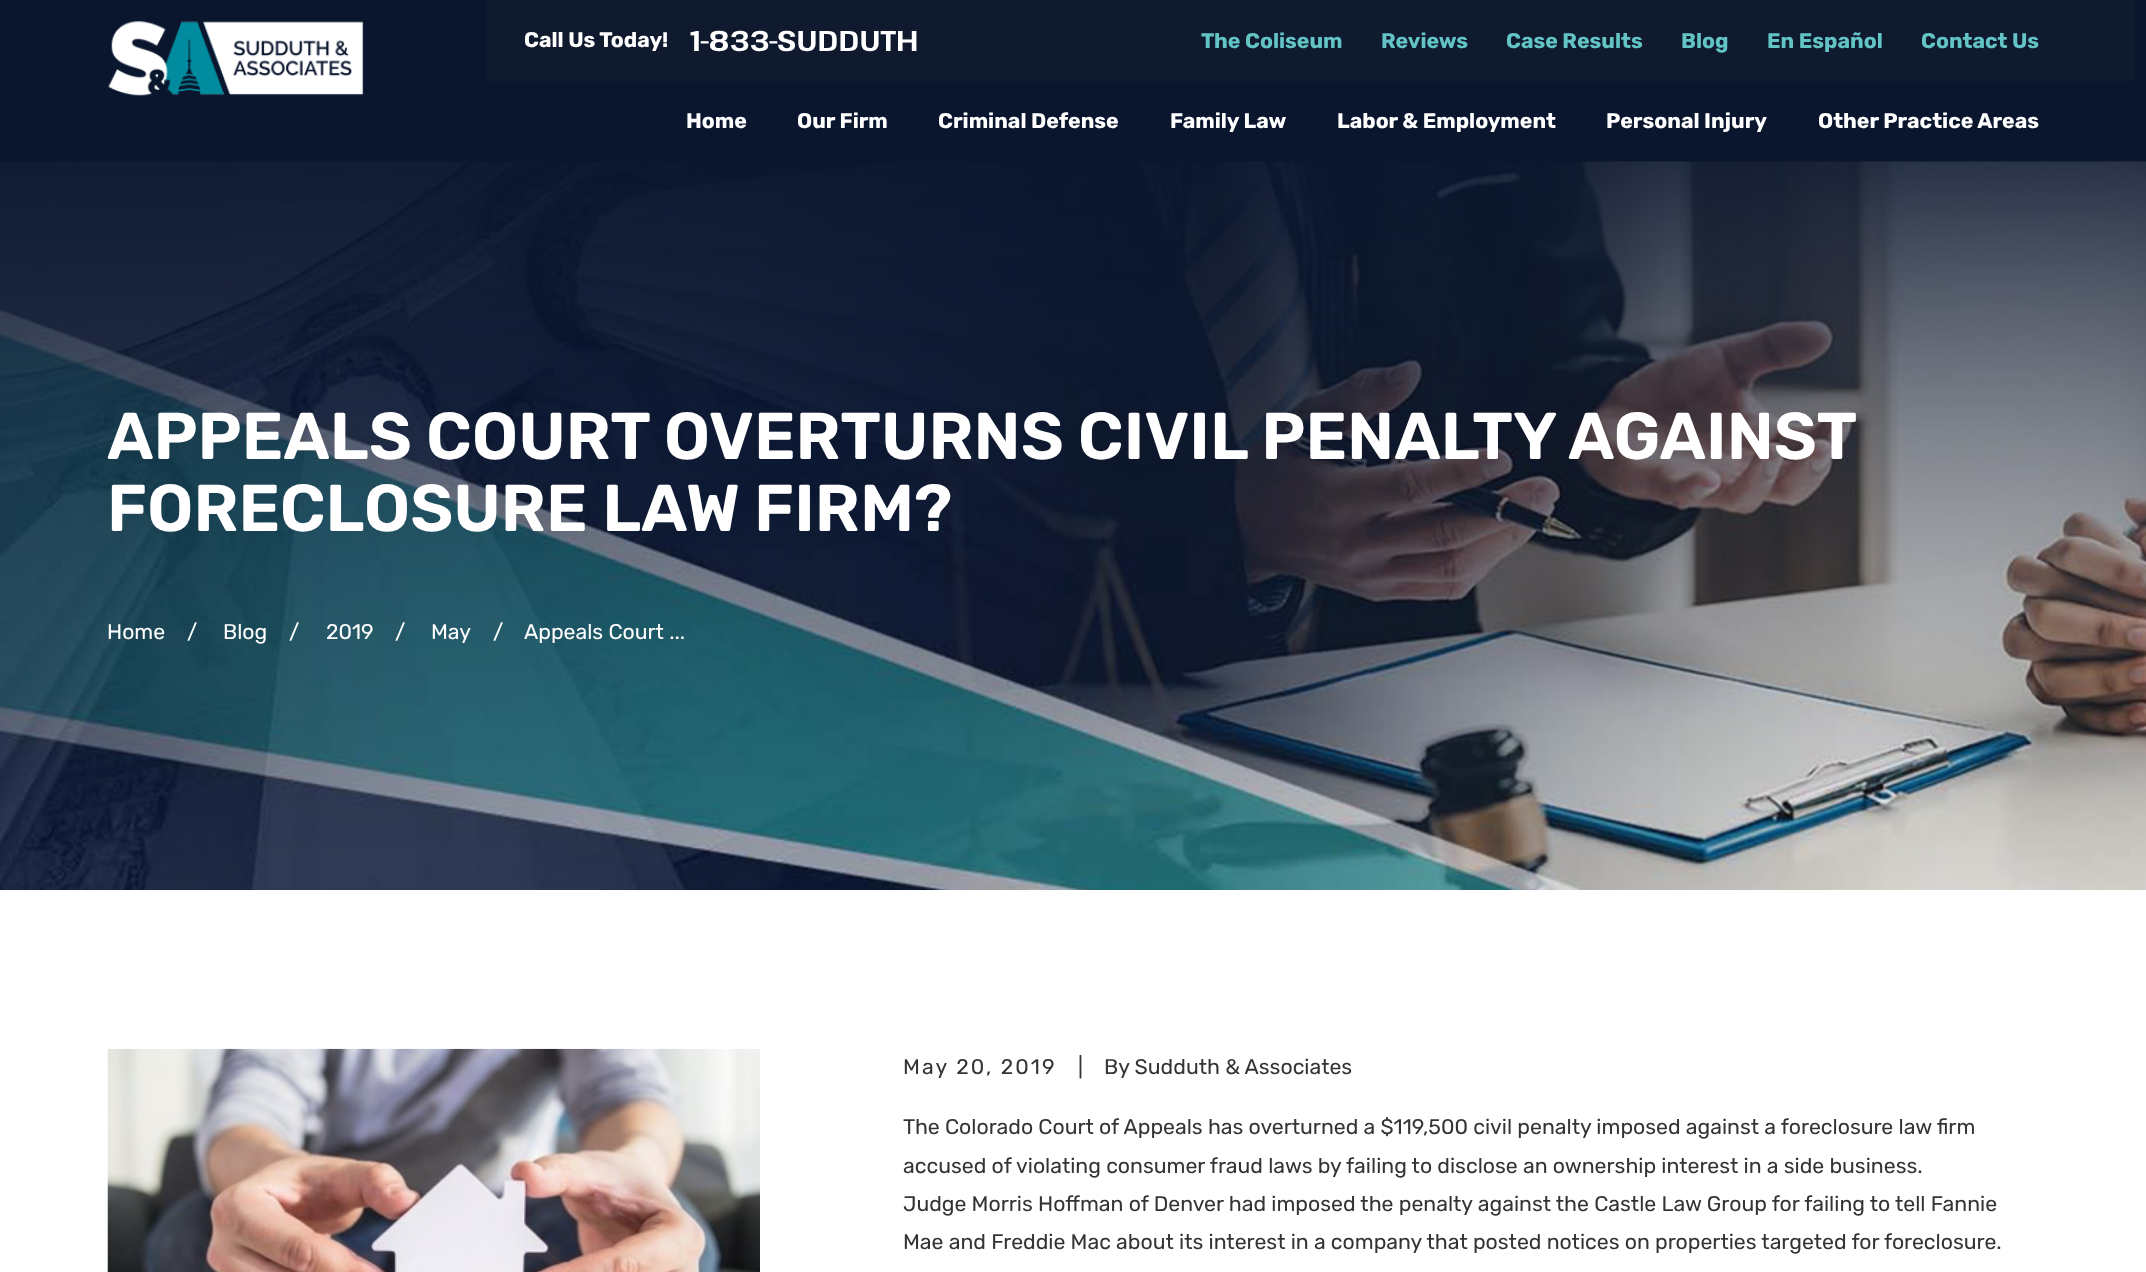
<!DOCTYPE html>
<meta charset="utf-8">
<style>body { margin: 0 } canvas { display: block }</style>
<canvas id="canvas" width="2146" height="1272"></canvas>
<script type="module">
  const canvas = document.getElementById("canvas");
  const g = canvas.getContext("2d");
  g.miterLimit = 4;
  g.fontKerning = "normal";
  function drawText(s, x, y, [font, color]) {
    g.font = font;
    g.fillStyle = color;
    g.fillText(s, x, y);
  }
  function fillBox(x, y, w, h, color) {
    g.fillStyle = color;
    g.fillRect(x, y, w, h);
  }
  async function drawPicture(src, x, y, w, h) {
    const img = new Image();
    img.src = src;
    await img.decode();
    g.drawImage(img, x, y, w, h);
  }

  const s1 = ["bold 21.25px Rubik", "#FFFFFF"];
  const s2 = ["bold 28.5px Pathway Extreme", "#FFFFFF"];
  const s3 = ["bold 21.25px Rubik", "#63C4C5"];
  const s4 = ["600 66.1px Rubik", "#FFFFFF"];
  const s5 = ["21.25px Rubik", "#FFFFFF"];
  const s6 = ["21.25px Rubik", "#343434"];

  fillBox(0, 0, 2146, 1272, "#FFFFFF");
  fillBox(0, 0, 2146, 162, "#0A162E");
  await drawPicture("pic1.png", 108, 21, 256, 75);
  fillBox(486, 0, 1649, 81, "#101A2E");
  drawText("Call Us Today!", 524, 47, s1);
  drawText("1-833-SUDDUTH", 690, 51, s2);
  drawText("The Coliseum", 1201, 48, s3);
  drawText("Reviews", 1381, 48, s3);
  drawText("Case Results", 1506, 48, s3);
  drawText("Blog", 1681, 48, s3);
  drawText("En Español", 1767, 48, s3);
  drawText("Contact Us", 1921, 48, s3);
  drawText("Home", 686, 128, s1);
  drawText("Our Firm", 797, 128, s1);
  drawText("Criminal Defense", 938, 128, s1);
  drawText("Family Law", 1170, 128, s1);
  drawText("Labor & Employment", 1337, 128, s1);
  drawText("Personal Injury", 1606, 128, s1);
  drawText("Other Practice Areas", 1818, 128, s1);
  await drawPicture("pic2.png", 0, 161, 2146, 729);
  g.wordSpacing = "-0.5px";
  drawText("APPEALS COURT OVERTURNS CIVIL PENALTY AGAINST", 107, 459, s4);
  g.wordSpacing = "0px";
  drawText("FORECLOSURE LAW FIRM?", 107, 531, s4);
  drawText("Home", 107, 639, s5);
  drawText("/", 187, 639, s5);
  drawText("Blog", 223, 639, s5);
  drawText("/", 289, 639, s5);
  drawText("2019", 326, 639, s5);
  drawText("/", 395, 639, s5);
  drawText("May", 431, 639, s5);
  drawText("/", 493, 639, s5);
  drawText("Appeals Court ...", 524, 639, s5);
  await drawPicture("pic3.png", 107, 1048, 653, 224);
  g.letterSpacing = "2.1px";
  drawText("May 20, 2019", 903, 1074, s6);
  g.letterSpacing = "0px";
  drawText("|", 1078, 1074, s6);
  drawText("By Sudduth & Associates", 1104, 1074, s6);
  drawText("The Colorado Court of Appeals has overturned a $119,500 civil penalty imposed against a foreclosure law firm", 903, 1134, s6);
  drawText("accused of violating consumer fraud laws by failing to disclose an ownership interest in a side business.", 903, 1173, s6);
  drawText("Judge Morris Hoffman of Denver had imposed the penalty against the Castle Law Group for failing to tell Fannie", 903, 1211, s6);
  drawText("Mae and Freddie Mac about its interest in a company that posted notices on properties targeted for foreclosure.", 903, 1249, s6);
</script>
